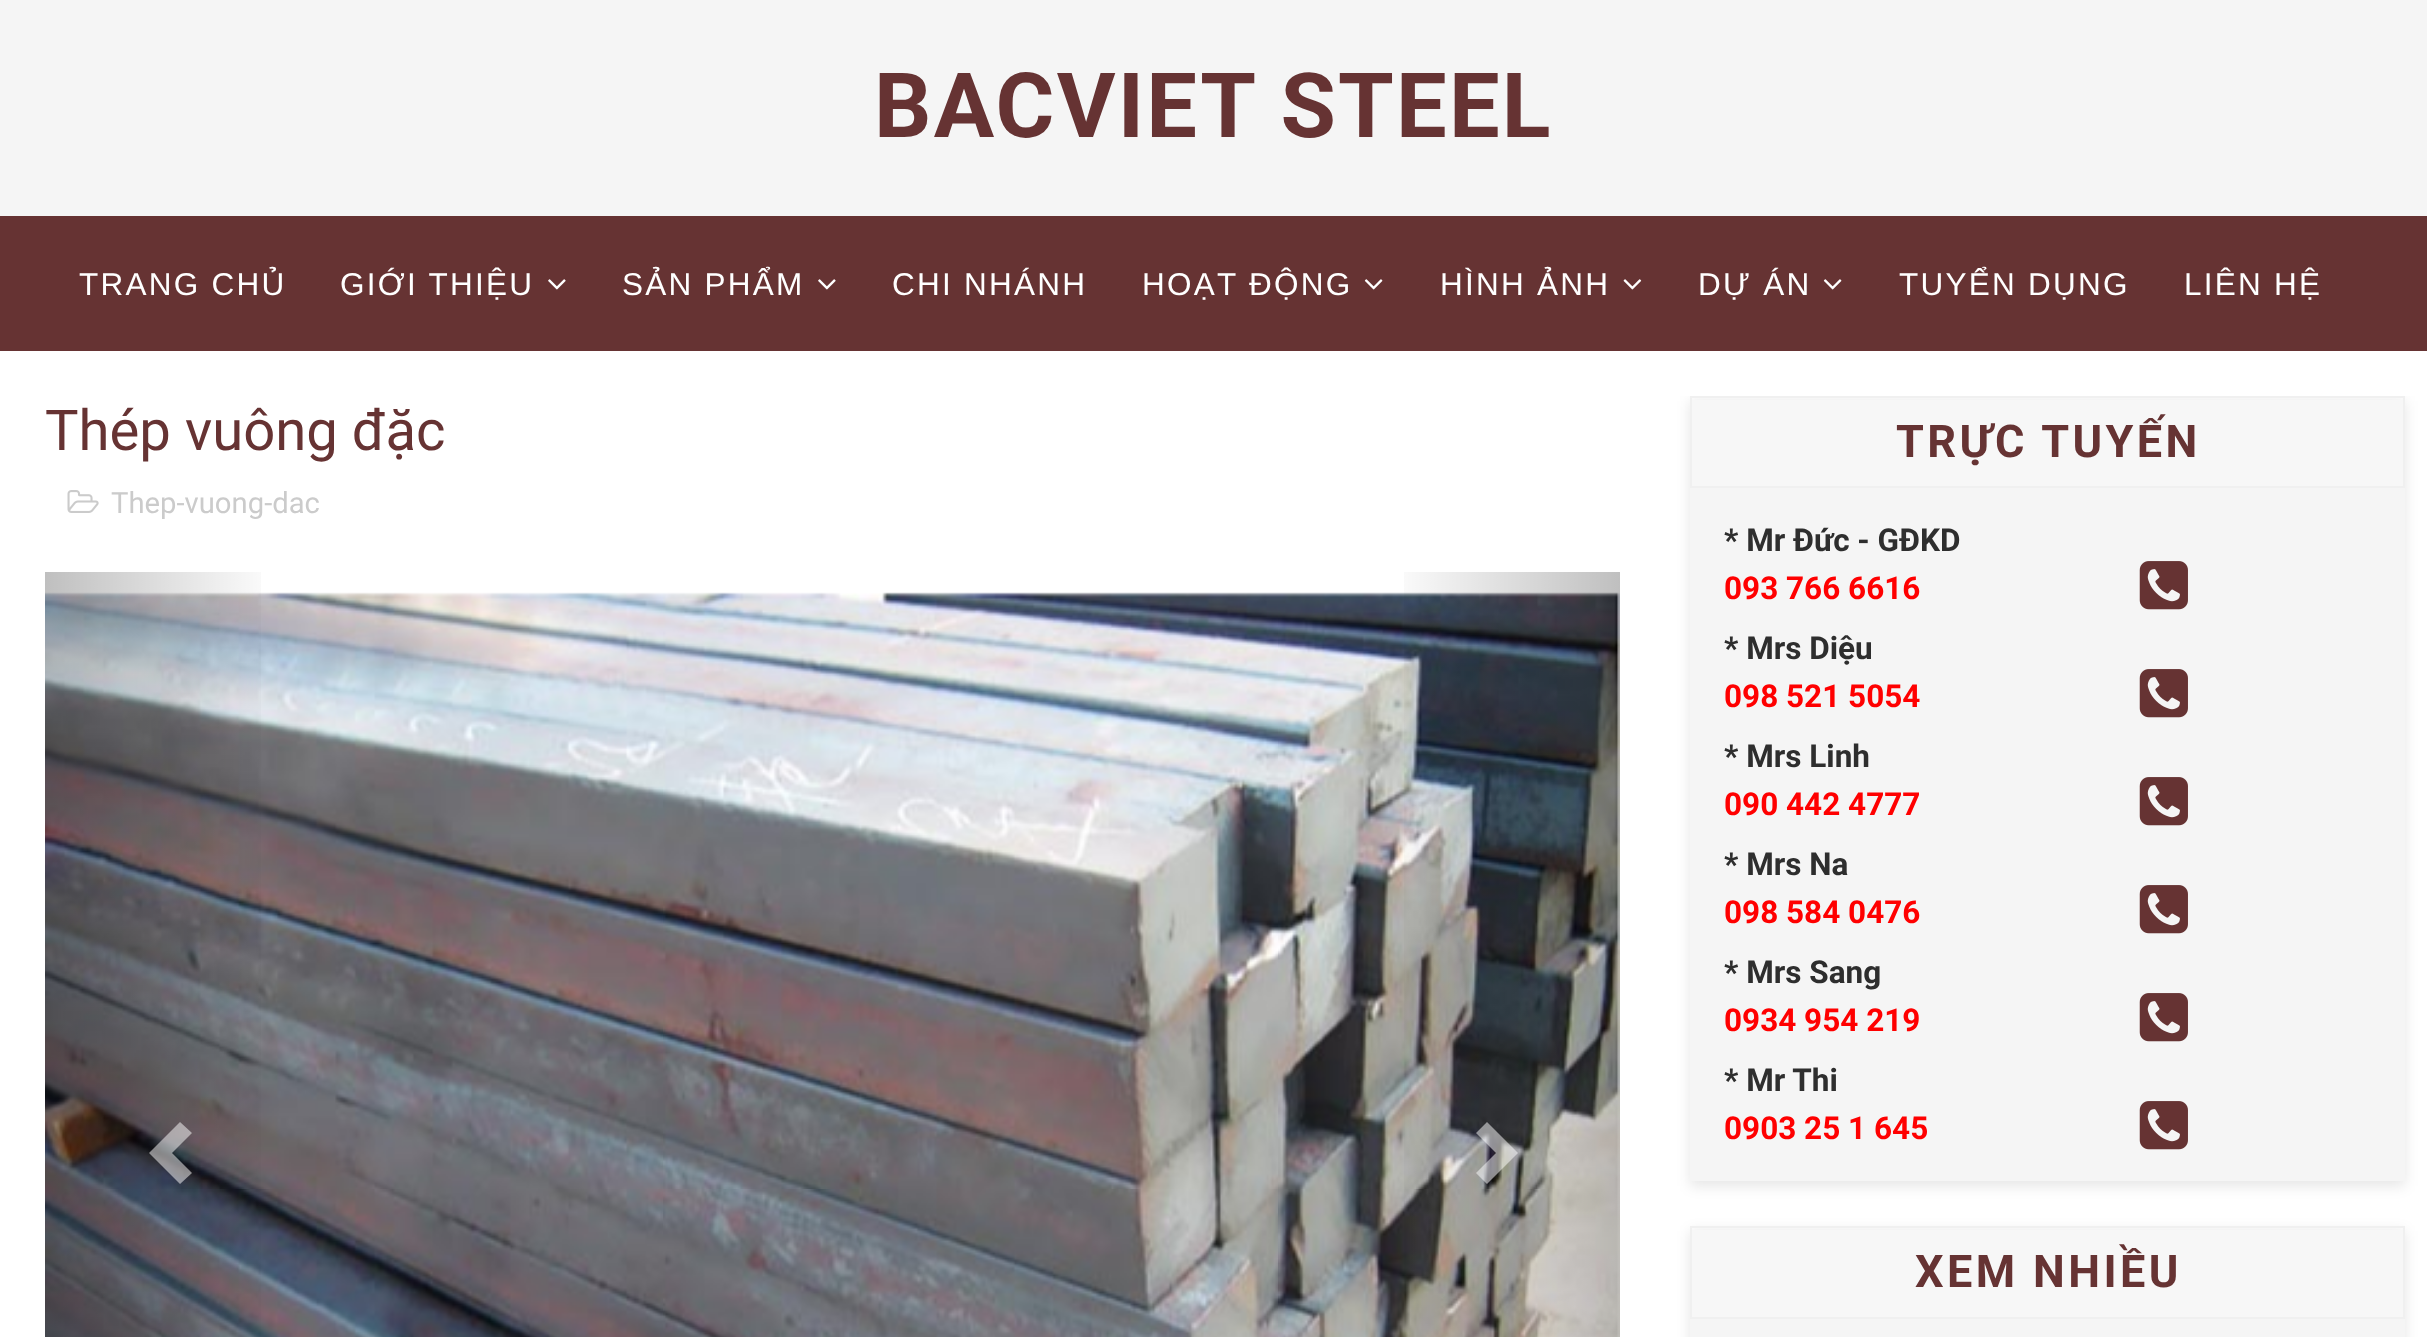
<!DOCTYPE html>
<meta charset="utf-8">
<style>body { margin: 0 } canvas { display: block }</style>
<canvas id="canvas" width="2427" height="1337"></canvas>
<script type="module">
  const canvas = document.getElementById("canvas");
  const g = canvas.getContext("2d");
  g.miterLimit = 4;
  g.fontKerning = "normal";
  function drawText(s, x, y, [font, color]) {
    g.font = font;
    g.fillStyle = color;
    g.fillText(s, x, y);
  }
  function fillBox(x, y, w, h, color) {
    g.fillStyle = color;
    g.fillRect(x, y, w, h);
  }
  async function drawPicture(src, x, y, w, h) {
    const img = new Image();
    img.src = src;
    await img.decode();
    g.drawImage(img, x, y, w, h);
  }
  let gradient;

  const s1 = ["bold 90px Roboto", "#663333"];
  const s2 = ["31.5px Liberation Sans", "#FFFFFF"];
  const s3 = ["56.25px Roboto", "#663333"];
  const s4 = ["29.25px Roboto", "#CBCBCB"];
  const s5 = ["bold 45px Roboto", "#663333"];
  const s6 = ["bold 31.5px Roboto", "#2E2E2E"];
  const s7 = ["bold 31.5px Roboto", "#FF0000"];

  fillBox(0, 0, 2427, 1337, "#FFFFFF");
  fillBox(0, 0, 2427, 216, "#F5F5F5");
  g.letterSpacing = "2.25px";
  drawText("BACVIET STEEL", 874, 137, s1);
  fillBox(0, 216, 2427, 135, "#663333");
  drawText("TRANG CHỦ", 79, 295, s2);
  drawText("GIỚI THIỆU", 340, 295, s2);
  await drawPicture("pic1.png", 548, 279, 18, 11);
  drawText("SẢN PHẨM", 622, 295, s2);
  await drawPicture("pic1.png", 818, 279, 18, 11);
  drawText("CHI NHÁNH", 892, 295, s2);
  drawText("HOẠT ĐỘNG", 1142, 295, s2);
  await drawPicture("pic2.png", 1364, 279, 19, 11);
  drawText("HÌNH ẢNH", 1440, 295, s2);
  await drawPicture("pic3.png", 1623, 279, 19, 11);
  drawText("DỰ ÁN", 1698, 295, s2);
  await drawPicture("pic2.png", 1823, 279, 19, 11);
  drawText("TUYỂN DỤNG", 1899, 295, s2);
  drawText("LIÊN HỆ", 2184, 295, s2);
  g.letterSpacing = "0px";
  drawText("Thép vuông đặc", 45, 450, s3);
  await drawPicture("pic4.png", 67, 490, 32, 23);
  drawText("Thep-vuong-dac", 111, 513, s4);
  await drawPicture("pic5.png", 45, 592, 1575, 745);
  gradient = g.createLinearGradient(45, 1140, 281, 1140);
  gradient.addColorStop(0, "rgba(0, 0, 0, 0.25)");
  gradient.addColorStop(1, "rgba(0, 0, 0, 0)");
  g.fillStyle = gradient;
  g.fillRect(45, 572, 216, 765);
  g.fillStyle = "rgba(255, 255, 255, 0.5)";
  g.beginPath();
  g.moveTo(192, 1133);
  g.lineTo(172, 1153);
  g.lineTo(192, 1173);
  g.lineTo(180, 1184);
  g.lineTo(149, 1153);
  g.lineTo(180, 1122);
  g.closePath();
  g.fill();
  gradient = g.createLinearGradient(1384, 1140, 1620, 1140);
  gradient.addColorStop(0, "rgba(0, 0, 0, 0)");
  gradient.addColorStop(1, "rgba(0, 0, 0, 0.25)");
  g.fillStyle = gradient;
  g.fillRect(1404, 572, 216, 765);
  g.fillStyle = "rgba(255, 255, 255, 0.5)";
  g.beginPath();
  g.moveTo(1518, 1153);
  g.lineTo(1487, 1184);
  g.lineTo(1476, 1173);
  g.lineTo(1496, 1153);
  g.lineTo(1476, 1133);
  g.lineTo(1487, 1122);
  g.closePath();
  g.fill();
  g.save();
  g.beginPath();
  g.rect(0, 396, 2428, 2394);
  g.clip();
  g.fillStyle = "rgba(0, 0, 0, 0.1)";
  g.filter = "blur(7px)";
  g.beginPath();
  g.rect(1690, 401, 715, 785);
  g.fill();
  g.filter = "none";
  g.restore();
  fillBox(1690, 488, 715, 693, "#F5F5F5");
  fillBox(1692, 400, 711, 86, "#F7F7F7");
  g.strokeStyle = "#F0F0F0";
  g.lineWidth = 2;
  g.strokeRect(1691, 397, 713, 90);
  g.letterSpacing = "3.4px";
  drawText("TRỰC TUYẾN", 1896, 457, s5);
  g.letterSpacing = "0px";
  drawText("* Mr Đức - GĐKD", 1724, 551, s6);
  drawText("093 766 6616", 1724, 599, s7);
  await drawPicture("pic6.png", 2139, 561, 49, 49);
  drawText("* Mrs Diệu", 1724, 659, s6);
  drawText("098 521 5054", 1724, 707, s7);
  await drawPicture("pic6.png", 2139, 669, 49, 49);
  drawText("* Mrs Linh", 1724, 767, s6);
  drawText("090 442 4777", 1724, 815, s7);
  await drawPicture("pic6.png", 2139, 777, 49, 49);
  drawText("* Mrs Na", 1724, 875, s6);
  drawText("098 584 0476", 1724, 923, s7);
  await drawPicture("pic6.png", 2139, 885, 49, 49);
  drawText("* Mrs Sang", 1724, 983, s6);
  drawText("0934 954 219", 1724, 1031, s7);
  await drawPicture("pic6.png", 2139, 993, 49, 49);
  drawText("* Mr Thi", 1724, 1091, s6);
  drawText("0903 25 1 645", 1724, 1139, s7);
  await drawPicture("pic6.png", 2139, 1101, 49, 49);
  g.fillStyle = "rgba(0, 0, 0, 0.1)";
  g.filter = "blur(7px)";
  g.beginPath();
  g.rect(1690, 1231, 715, 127);
  g.fill();
  g.filter = "none";
  fillBox(1690, 1319, 715, 18, "#F5F5F5");
  fillBox(1692, 1230, 711, 87, "#F7F7F7");
  g.strokeRect(1691, 1227, 713, 91);
  g.letterSpacing = "3.4px";
  drawText("XEM NHIỀU", 1915, 1287, s5);
</script>
